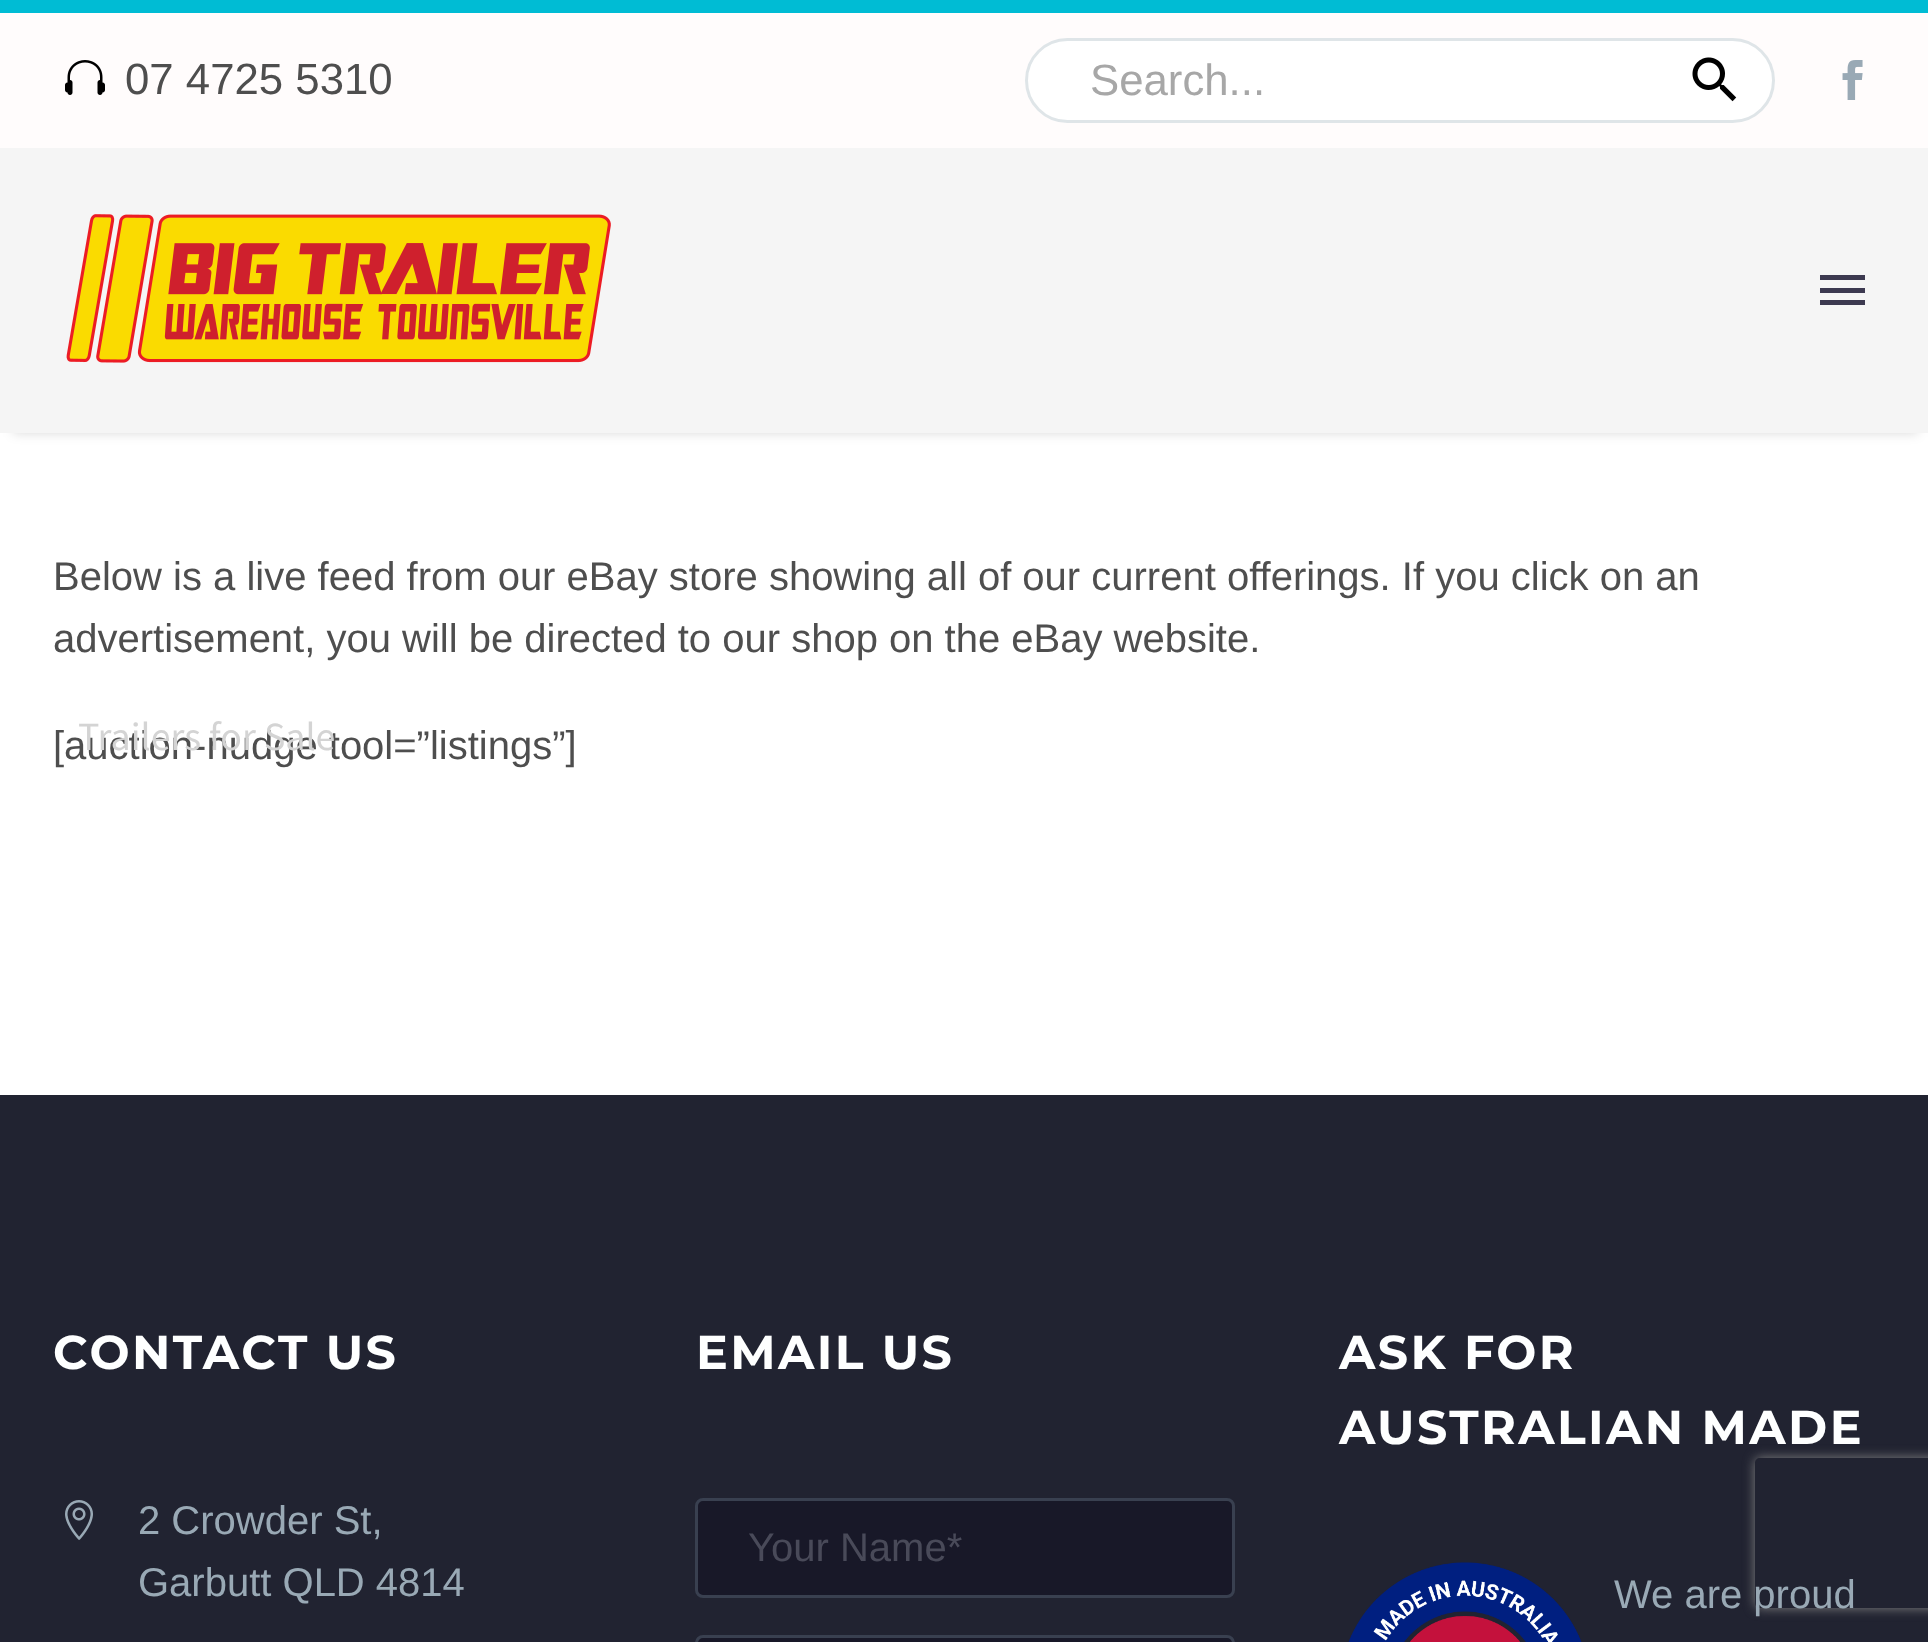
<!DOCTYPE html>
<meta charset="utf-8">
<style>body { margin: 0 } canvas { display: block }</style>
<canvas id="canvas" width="1928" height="1642"></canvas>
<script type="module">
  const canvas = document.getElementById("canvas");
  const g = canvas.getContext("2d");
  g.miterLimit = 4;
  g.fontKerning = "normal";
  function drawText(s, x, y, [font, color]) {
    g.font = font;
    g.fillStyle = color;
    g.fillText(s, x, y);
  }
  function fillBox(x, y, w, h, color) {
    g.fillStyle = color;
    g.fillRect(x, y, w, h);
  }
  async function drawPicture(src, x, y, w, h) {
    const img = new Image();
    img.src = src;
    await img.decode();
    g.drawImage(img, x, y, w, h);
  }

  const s1 = ["43.75px Liberation Sans", "#4E4E4E"];
  const s2 = ["43.75px Liberation Sans", "#A7A7A7"];
  const s3 = ["40px Liberation Sans", "#4E4E4E"];
  const s4 = ["40px Source Sans Pro", "#D4D4D4"];
  const s5 = ["bold 47.5px Montserrat", "#FEFFFF"];
  const s6 = ["40px Liberation Sans", "#99A9B5"];
  const s7 = ["40px Liberation Sans", "#494A59"];

  fillBox(0, 0, 1928, 1642, "#212331");
  fillBox(0, 13, 1928, 135, "#FFFCFC");
  fillBox(0, 0, 1928, 13, "#00BCD4");
  await drawPicture("pic1.png", 65, 60, 20, 35);
  await drawPicture("pic2.png", 85, 60, 20, 35);
  drawText("07 4725 5310", 125, 94, s1);
  g.fillStyle = "#FFFFFF";
  g.beginPath();
  g.roundRect(1026.5, 39.5, 747, 82, 41);
  g.fill();
  g.strokeStyle = "#DFE5E8";
  g.lineWidth = 3;
  g.stroke();
  drawText("Search...", 1090, 95, s2);
  await drawPicture("pic3.png", 1692, 57, 45, 45);
  await drawPicture("pic4.png", 1842, 60, 21, 40);
  fillBox(0, 148, 1928, 285, "#F5F5F5");
  fillBox(0, 433, 1928, 662, "#FFFFFF");
  g.save();
  g.beginPath();
  g.moveTo(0, 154);
  g.lineTo(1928, 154);
  g.lineTo(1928, 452);
  g.lineTo(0, 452);
  g.closePath();
  g.moveTo(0, 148);
  g.lineTo(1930, 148);
  g.lineTo(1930, 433);
  g.lineTo(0, 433);
  g.closePath();
  g.clip("evenodd");
  g.fillStyle = "rgba(0, 0, 0, 0.15)";
  g.filter = "blur(6px)";
  g.beginPath();
  g.rect(13, 173, 1905, 260);
  g.fill();
  g.filter = "none";
  g.restore();
  await drawPicture("pic5.png", 66, 214, 545, 149);
  fillBox(1820, 275, 45, 5, "#3C3950");
  fillBox(1820, 288, 45, 5, "#3C3950");
  fillBox(1820, 300, 45, 5, "#3C3950");
  drawText("[auction-nudge tool=”listings”]", 53, 759, s3);
  drawText("Trailers for Sale", 78, 750, s4);
  drawText("Below is a live feed from our eBay store showing all of our current offerings. If you click on an", 53, 590, s3);
  drawText("advertisement, you will be directed to our shop on the eBay website.", 53, 652, s3);
  g.letterSpacing = "2.4px";
  drawText("CONTACT US", 53, 1369, s5);
  await drawPicture("pic6.png", 65, 1500, 15, 40);
  await drawPicture("pic7.png", 80, 1500, 13, 40);
  g.letterSpacing = "0px";
  drawText("2 Crowder St,", 138, 1534, s6);
  drawText("Garbutt QLD 4814", 138, 1596, s6);
  g.letterSpacing = "2.4px";
  drawText("EMAIL US", 696, 1369, s5);
  g.fillStyle = "#181828";
  g.beginPath();
  g.roundRect(696.5, 1499.5, 537, 97, 6.5);
  g.fill();
  g.strokeStyle = "#394050";
  g.stroke();
  g.letterSpacing = "0px";
  drawText("Your Name*", 748, 1561, s7);
  g.fillStyle = "#181828";
  g.beginPath();
  g.roundRect(696.5, 1636.5, 537, 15, 6.5);
  g.fill();
  g.stroke();
  g.letterSpacing = "2.4px";
  drawText("ASK FOR", 1339, 1369, s5);
  g.save();
  g.beginPath();
  g.moveTo(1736, 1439);
  g.lineTo(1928, 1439);
  g.lineTo(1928, 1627);
  g.lineTo(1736, 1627);
  g.closePath();
  g.moveTo(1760, 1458);
  g.lineTo(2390, 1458);
  g.bezierCurveTo(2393, 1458, 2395, 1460, 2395, 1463);
  g.lineTo(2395, 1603);
  g.bezierCurveTo(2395, 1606, 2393, 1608, 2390, 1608);
  g.lineTo(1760, 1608);
  g.bezierCurveTo(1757, 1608, 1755, 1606, 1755, 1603);
  g.lineTo(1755, 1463);
  g.bezierCurveTo(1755, 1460, 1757, 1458, 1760, 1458);
  g.closePath();
  g.clip("evenodd");
  g.fillStyle = "#808080";
  g.filter = "blur(6px)";
  g.beginPath();
  g.roundRect(1755, 1458, 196, 150, 5);
  g.fill();
  g.filter = "none";
  g.restore();
  drawText("AUSTRALIAN MADE", 1339, 1444, s5);
  await drawPicture("pic8.png", 1348, 1562, 234, 80);
  g.letterSpacing = "0px";
  drawText("We are proud", 1614, 1608, s6);
</script>
